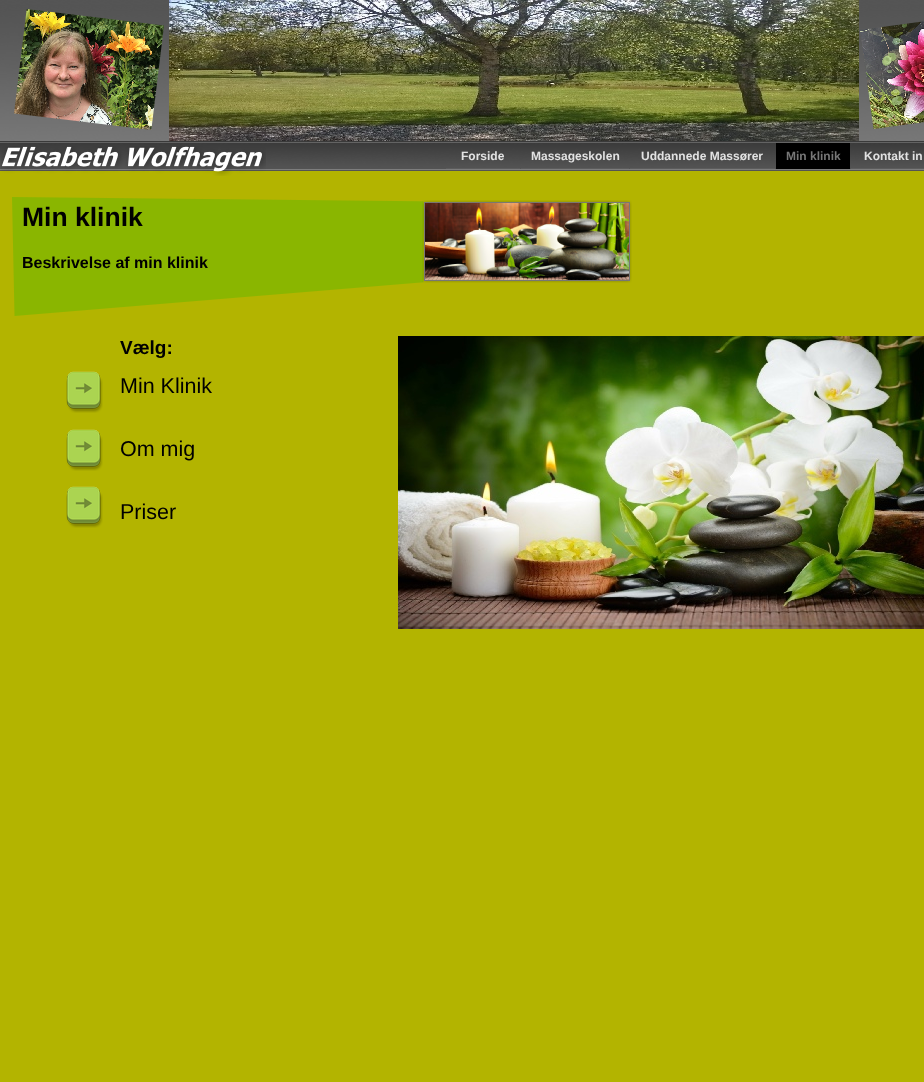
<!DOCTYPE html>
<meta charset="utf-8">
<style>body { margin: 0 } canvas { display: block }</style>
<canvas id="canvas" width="924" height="1082"></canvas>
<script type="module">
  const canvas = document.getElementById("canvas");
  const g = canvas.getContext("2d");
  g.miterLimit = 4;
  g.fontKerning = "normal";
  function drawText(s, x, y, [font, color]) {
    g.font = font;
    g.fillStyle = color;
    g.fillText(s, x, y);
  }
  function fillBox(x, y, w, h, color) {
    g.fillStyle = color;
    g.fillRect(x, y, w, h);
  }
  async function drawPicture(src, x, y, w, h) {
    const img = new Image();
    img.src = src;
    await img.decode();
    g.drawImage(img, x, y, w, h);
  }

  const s1 = ["bold 12px Liberation Sans", "#E2E2E2"];
  const s2 = ["bold 12px Liberation Sans", "#777777"];
  const s3 = ["bold 26.5px Liberation Sans", "#000000"];
  const s4 = ["bold 16px Liberation Sans", "#000000"];
  const s5 = ["bold 19px Liberation Sans", "#000000"];
  const s6 = ["21.5px Liberation Sans", "#000000"];

  fillBox(0, 0, 924, 1082, "#B3B400");
  await drawPicture("pic1.png", 0, 0, 924, 171);
  await drawPicture("pic2.png", 14, 9, 150, 121);
  await drawPicture("pic3.png", 169, 0, 690, 141);
  await drawPicture("pic4.png", 860, 21, 64, 108);
  await drawPicture("pic5.png", 1, 146, 265, 30);
  fillBox(446, 168, 74, 1, "#5C5C5C");
  drawText("Forside", 461, 160, s1);
  fillBox(521, 168, 108, 1, "#5C5C5C");
  drawText("Massageskolen", 531, 160, s1);
  fillBox(630, 168, 145, 1, "#5C5C5C");
  drawText("Uddannede Massører", 641, 160, s1);
  fillBox(776, 143, 74, 26, "#000000");
  drawText("Min klinik", 786, 160, s2);
  fillBox(851, 168, 73, 1, "#5C5C5C");
  drawText("Kontakt in", 864, 160, s1);
  await drawPicture("pic6.png", 12, 197, 412, 119);
  await drawPicture("pic7.png", 422, 200, 210, 83);
  drawText("Min klinik", 22, 226, s3);
  drawText("Beskrivelse af min klinik", 22, 268, s4);
  await drawPicture("pic8.png", 66, 371, 37, 42);
  drawText("Vælg:", 120, 354, s5);
  drawText("Min Klinik", 120, 393, s6);
  drawText("Om mig", 120, 456, s6);
  drawText("Priser", 120, 519, s6);
  await drawPicture("pic9.png", 398, 336, 526, 293);
  await drawPicture("pic8.png", 66, 429, 37, 42);
  await drawPicture("pic8.png", 66, 486, 37, 42);
</script>
